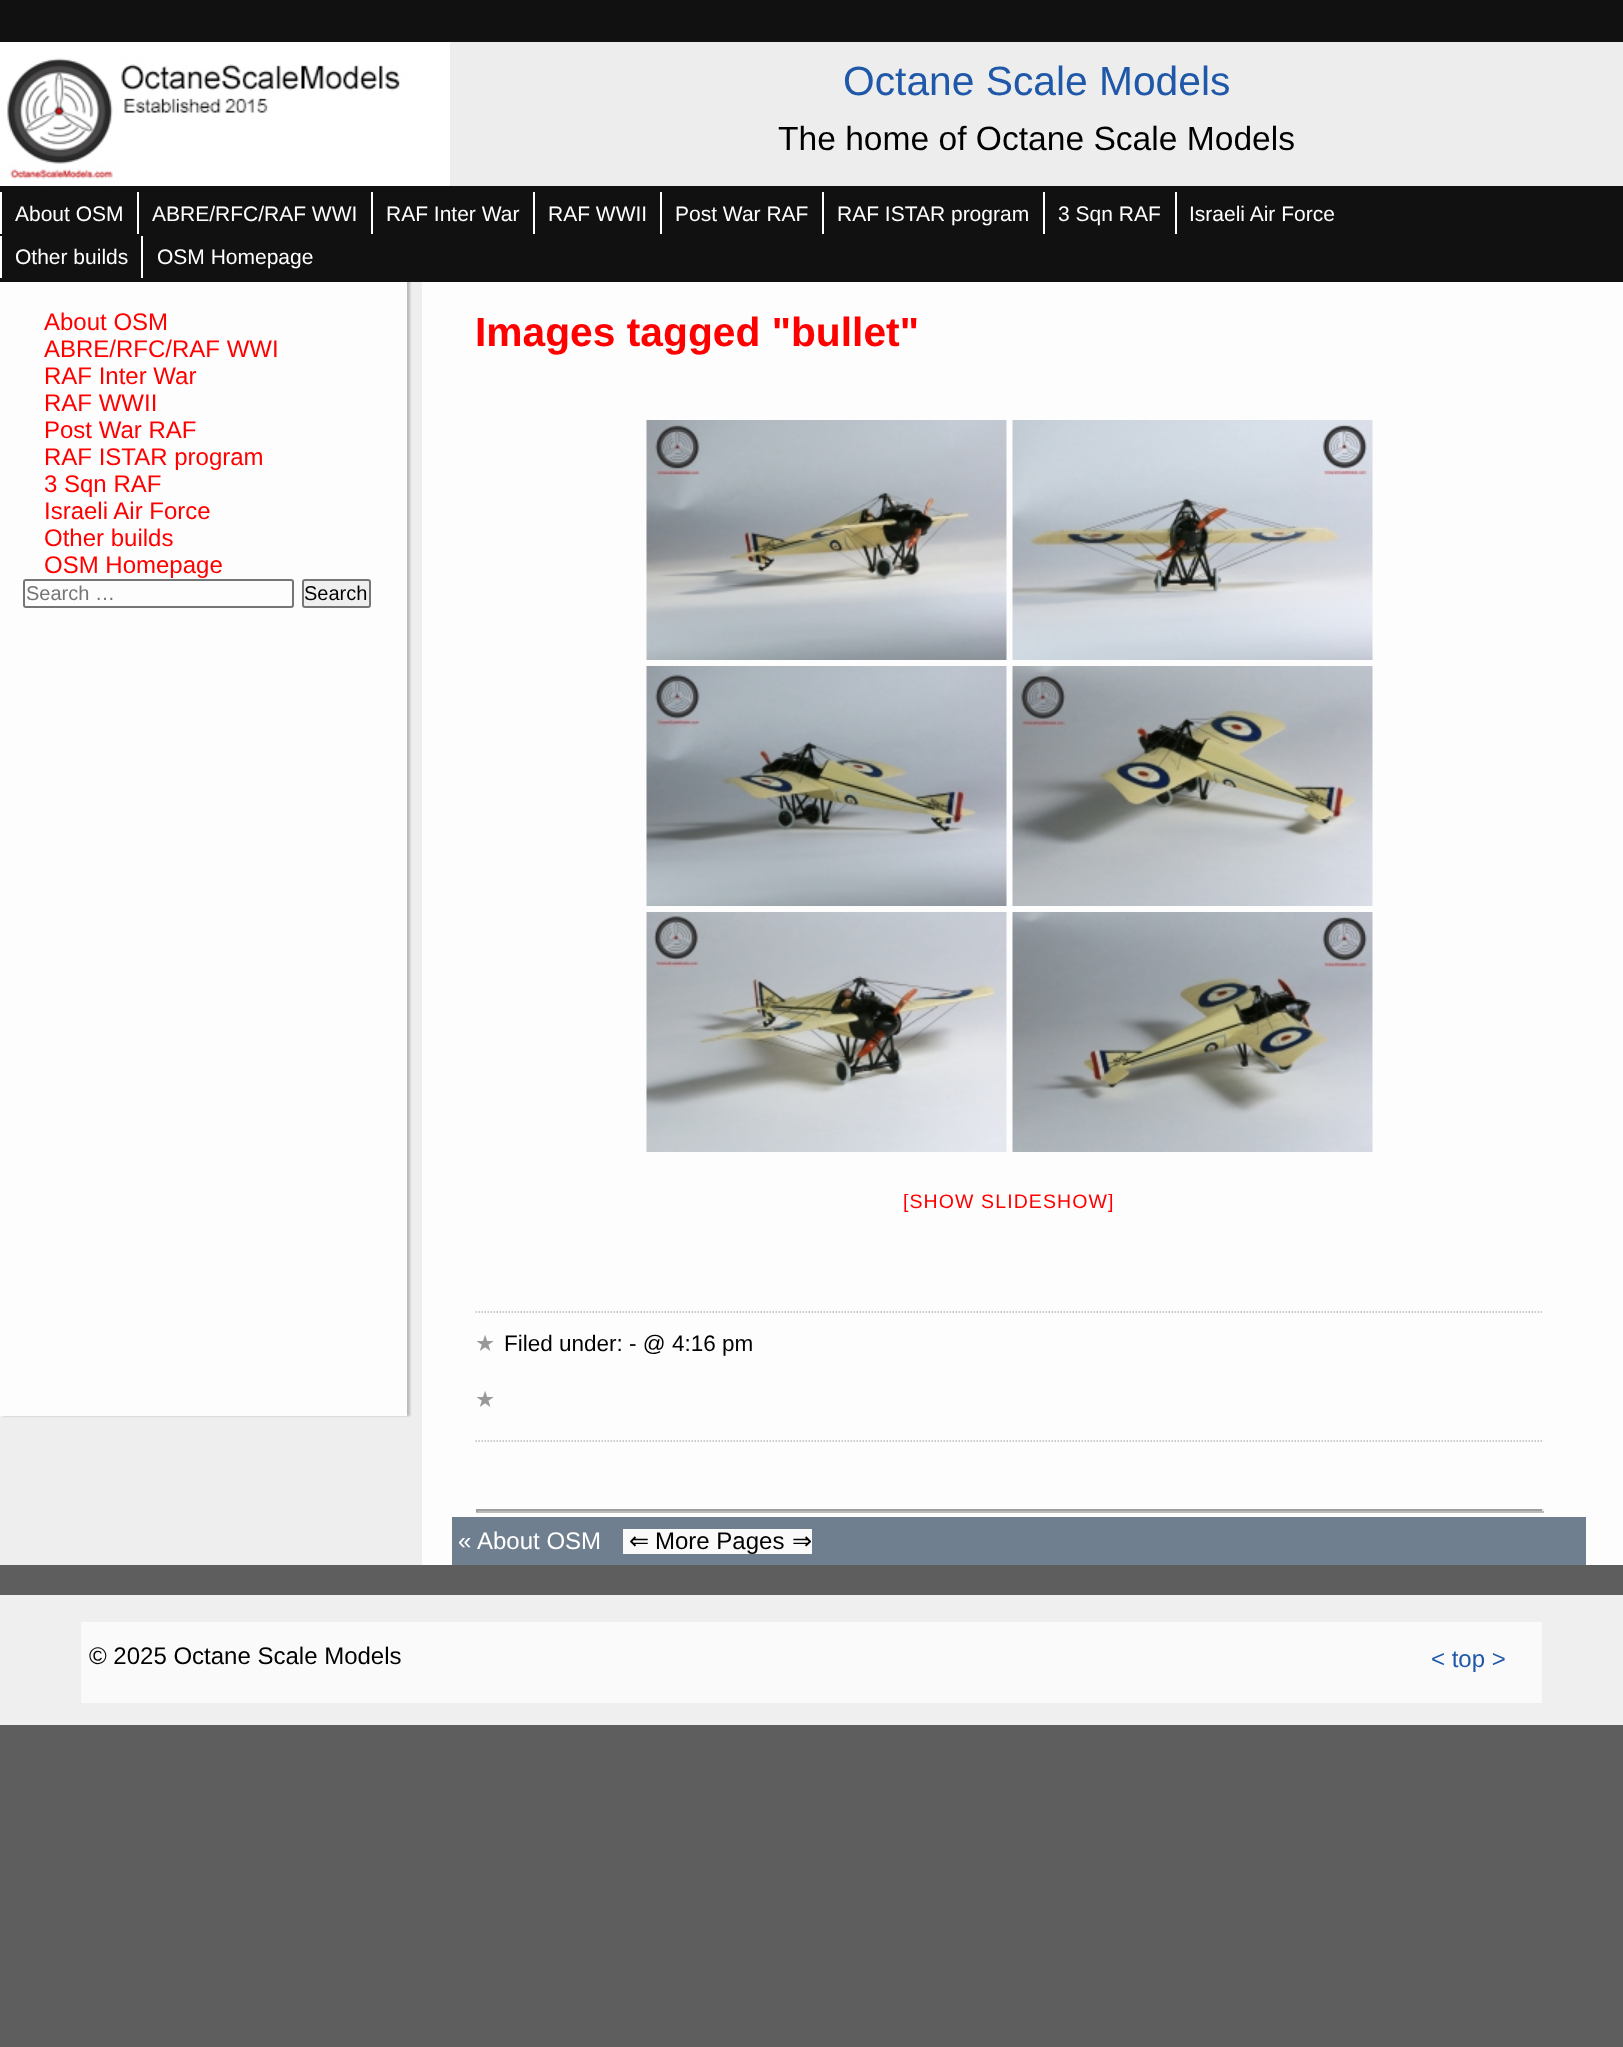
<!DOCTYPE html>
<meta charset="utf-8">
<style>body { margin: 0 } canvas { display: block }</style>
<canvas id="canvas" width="1623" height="2047"></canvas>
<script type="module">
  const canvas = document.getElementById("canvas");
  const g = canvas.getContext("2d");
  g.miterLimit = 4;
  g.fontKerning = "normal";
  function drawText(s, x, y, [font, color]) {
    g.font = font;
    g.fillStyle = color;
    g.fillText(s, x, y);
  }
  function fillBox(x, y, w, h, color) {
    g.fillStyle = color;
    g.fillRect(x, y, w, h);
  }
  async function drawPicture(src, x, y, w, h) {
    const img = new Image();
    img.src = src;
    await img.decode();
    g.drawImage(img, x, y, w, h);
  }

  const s1 = ["40.75px Liberation Sans", "#1F58A8"];
  const s2 = ["33.6px Liberation Sans", "#000000"];
  const s3 = ["21px Liberation Sans", "#FFFFFF"];
  const s4 = ["24px Liberation Sans", "#FF0000"];
  const s5 = ["20px Liberation Sans", "#757575"];
  const s6 = ["20px Liberation Sans", "#000000"];
  const s7 = ["bold 40.75px Liberation Sans", "#FF0000"];
  const s8 = ["19.5px Liberation Sans", "#FF0000"];
  const s9 = ["22.5px DejaVu Sans", "#999999"];
  const s10 = ["22.5px Liberation Sans", "#000000"];
  const s11 = ["24px Liberation Sans", "#FFFFFF"];
  const s12 = ["24px DejaVu Sans", "#000000"];
  const s13 = ["24px Liberation Sans", "#000000"];
  const s14 = ["24px Liberation Sans", "#1F58A8"];

  fillBox(0, 0, 1623, 2047, "#5E5E5E");
  fillBox(0, 0, 1623, 42, "#111111");
  fillBox(450, 42, 1173, 144, "#EDEDED");
  await drawPicture("pic1.png", 0, 42, 450, 144);
  drawText("Octane Scale Models", 843, 95, s1);
  drawText("The home of Octane Scale Models", 778, 150, s2);
  fillBox(0, 282, 422, 1283, "#EEEEEE");
  g.fillStyle = "#BBBBBB";
  g.filter = "blur(1px)";
  g.beginPath();
  g.rect(3, 264, 407, 1152);
  g.fill();
  g.filter = "none";
  fillBox(0, 186, 1623, 96, "#111111");
  fillBox(0, 192, 2, 42, "#FFFFFF");
  drawText("About OSM", 15, 221, s3);
  fillBox(137, 192, 2, 42, "#FFFFFF");
  drawText("ABRE/RFC/RAF WWI", 152, 221, s3);
  fillBox(371, 192, 2, 42, "#FFFFFF");
  drawText("RAF Inter War", 386, 221, s3);
  fillBox(533, 192, 2, 42, "#FFFFFF");
  drawText("RAF WWII", 548, 221, s3);
  fillBox(660, 192, 2, 42, "#FFFFFF");
  drawText("Post War RAF", 675, 221, s3);
  fillBox(822, 192, 2, 42, "#FFFFFF");
  drawText("RAF ISTAR program", 837, 221, s3);
  fillBox(1043, 192, 2, 42, "#FFFFFF");
  drawText("3 Sqn RAF", 1058, 221, s3);
  fillBox(1175, 192, 2, 42, "#FFFFFF");
  drawText("Israeli Air Force", 1189, 221, s3);
  fillBox(0, 236, 2, 42, "#FFFFFF");
  drawText("Other builds", 15, 264, s3);
  fillBox(141, 236, 2, 42, "#FFFFFF");
  drawText("OSM Homepage", 157, 264, s3);
  fillBox(0, 282, 407, 1134, "#FDFDFD");
  drawText("About OSM", 44, 330, s4);
  drawText("ABRE/RFC/RAF WWI", 44, 357, s4);
  drawText("RAF Inter War", 44, 384, s4);
  drawText("RAF WWII", 44, 411, s4);
  drawText("Post War RAF", 44, 438, s4);
  drawText("RAF ISTAR program", 44, 465, s4);
  drawText("3 Sqn RAF", 44, 492, s4);
  drawText("Israeli Air Force", 44, 519, s4);
  drawText("Other builds", 44, 546, s4);
  drawText("OSM Homepage", 44, 573, s4);
  g.beginPath();
  g.roundRect(24, 580, 269, 27, 2);
  g.strokeStyle = "#767676";
  g.lineWidth = 2;
  g.stroke();
  drawText("Search …", 26, 600, s5);
  g.fillStyle = "#EFEFEF";
  g.beginPath();
  g.roundRect(303, 580, 67, 27, 2);
  g.fill();
  g.stroke();
  drawText("Search", 304, 600, s6);
  fillBox(422, 282, 1201, 1283, "#FDFDFD");
  drawText("Images tagged \"bullet\"", 475, 346, s7);
  await drawPicture("pic2.png", 646, 420, 361, 240);
  await drawPicture("pic3.png", 1012, 420, 361, 240);
  await drawPicture("pic4.png", 646, 666, 361, 240);
  await drawPicture("pic5.png", 1012, 666, 361, 240);
  await drawPicture("pic6.png", 646, 912, 361, 240);
  await drawPicture("pic7.png", 1012, 912, 361, 240);
  g.letterSpacing = "1.1px";
  drawText("[SHOW SLIDESHOW]", 903, 1208, s8);
  g.beginPath();
  g.moveTo(475.5, 1312);
  g.lineTo(1543.5, 1312);
  g.strokeStyle = "#BBBBBB";
  g.lineWidth = 1.5;
  g.setLineDash([1.5, 1.5]);
  g.stroke();
  g.beginPath();
  g.moveTo(475.5, 1441);
  g.lineTo(1543.5, 1441);
  g.stroke();
  g.letterSpacing = "0px";
  drawText("★", 475, 1351, s9);
  drawText("Filed under: - @ 4:16 pm", 504, 1351, s10);
  drawText("★", 475, 1407, s9);
  fillBox(476, 1509, 1068, 2, "#9F9F9F");
  fillBox(1542, 1509, 2, 3, "#EEEEEE");
  fillBox(476, 1511, 1068, 2, "#BBBBBB");
  fillBox(476, 1509, 2, 3, "#9F9F9F");
  fillBox(452, 1517, 1134, 48, "#6F7F8F");
  drawText("«", 458, 1549, s11);
  drawText("About OSM", 477, 1549, s11);
  fillBox(623, 1529, 189, 25, "#FAFAFA");
  drawText("⇐", 629, 1549, s12);
  drawText("More Pages", 655, 1549, s13);
  drawText("⇒", 792, 1549, s12);
  fillBox(0, 1595, 1623, 130, "#EFEFEF");
  fillBox(81, 1622, 1461, 81, "#FAFAFA");
  drawText("© 2025 Octane Scale Models", 89, 1664, s13);
  drawText("< top >", 1431, 1667, s14);
</script>
